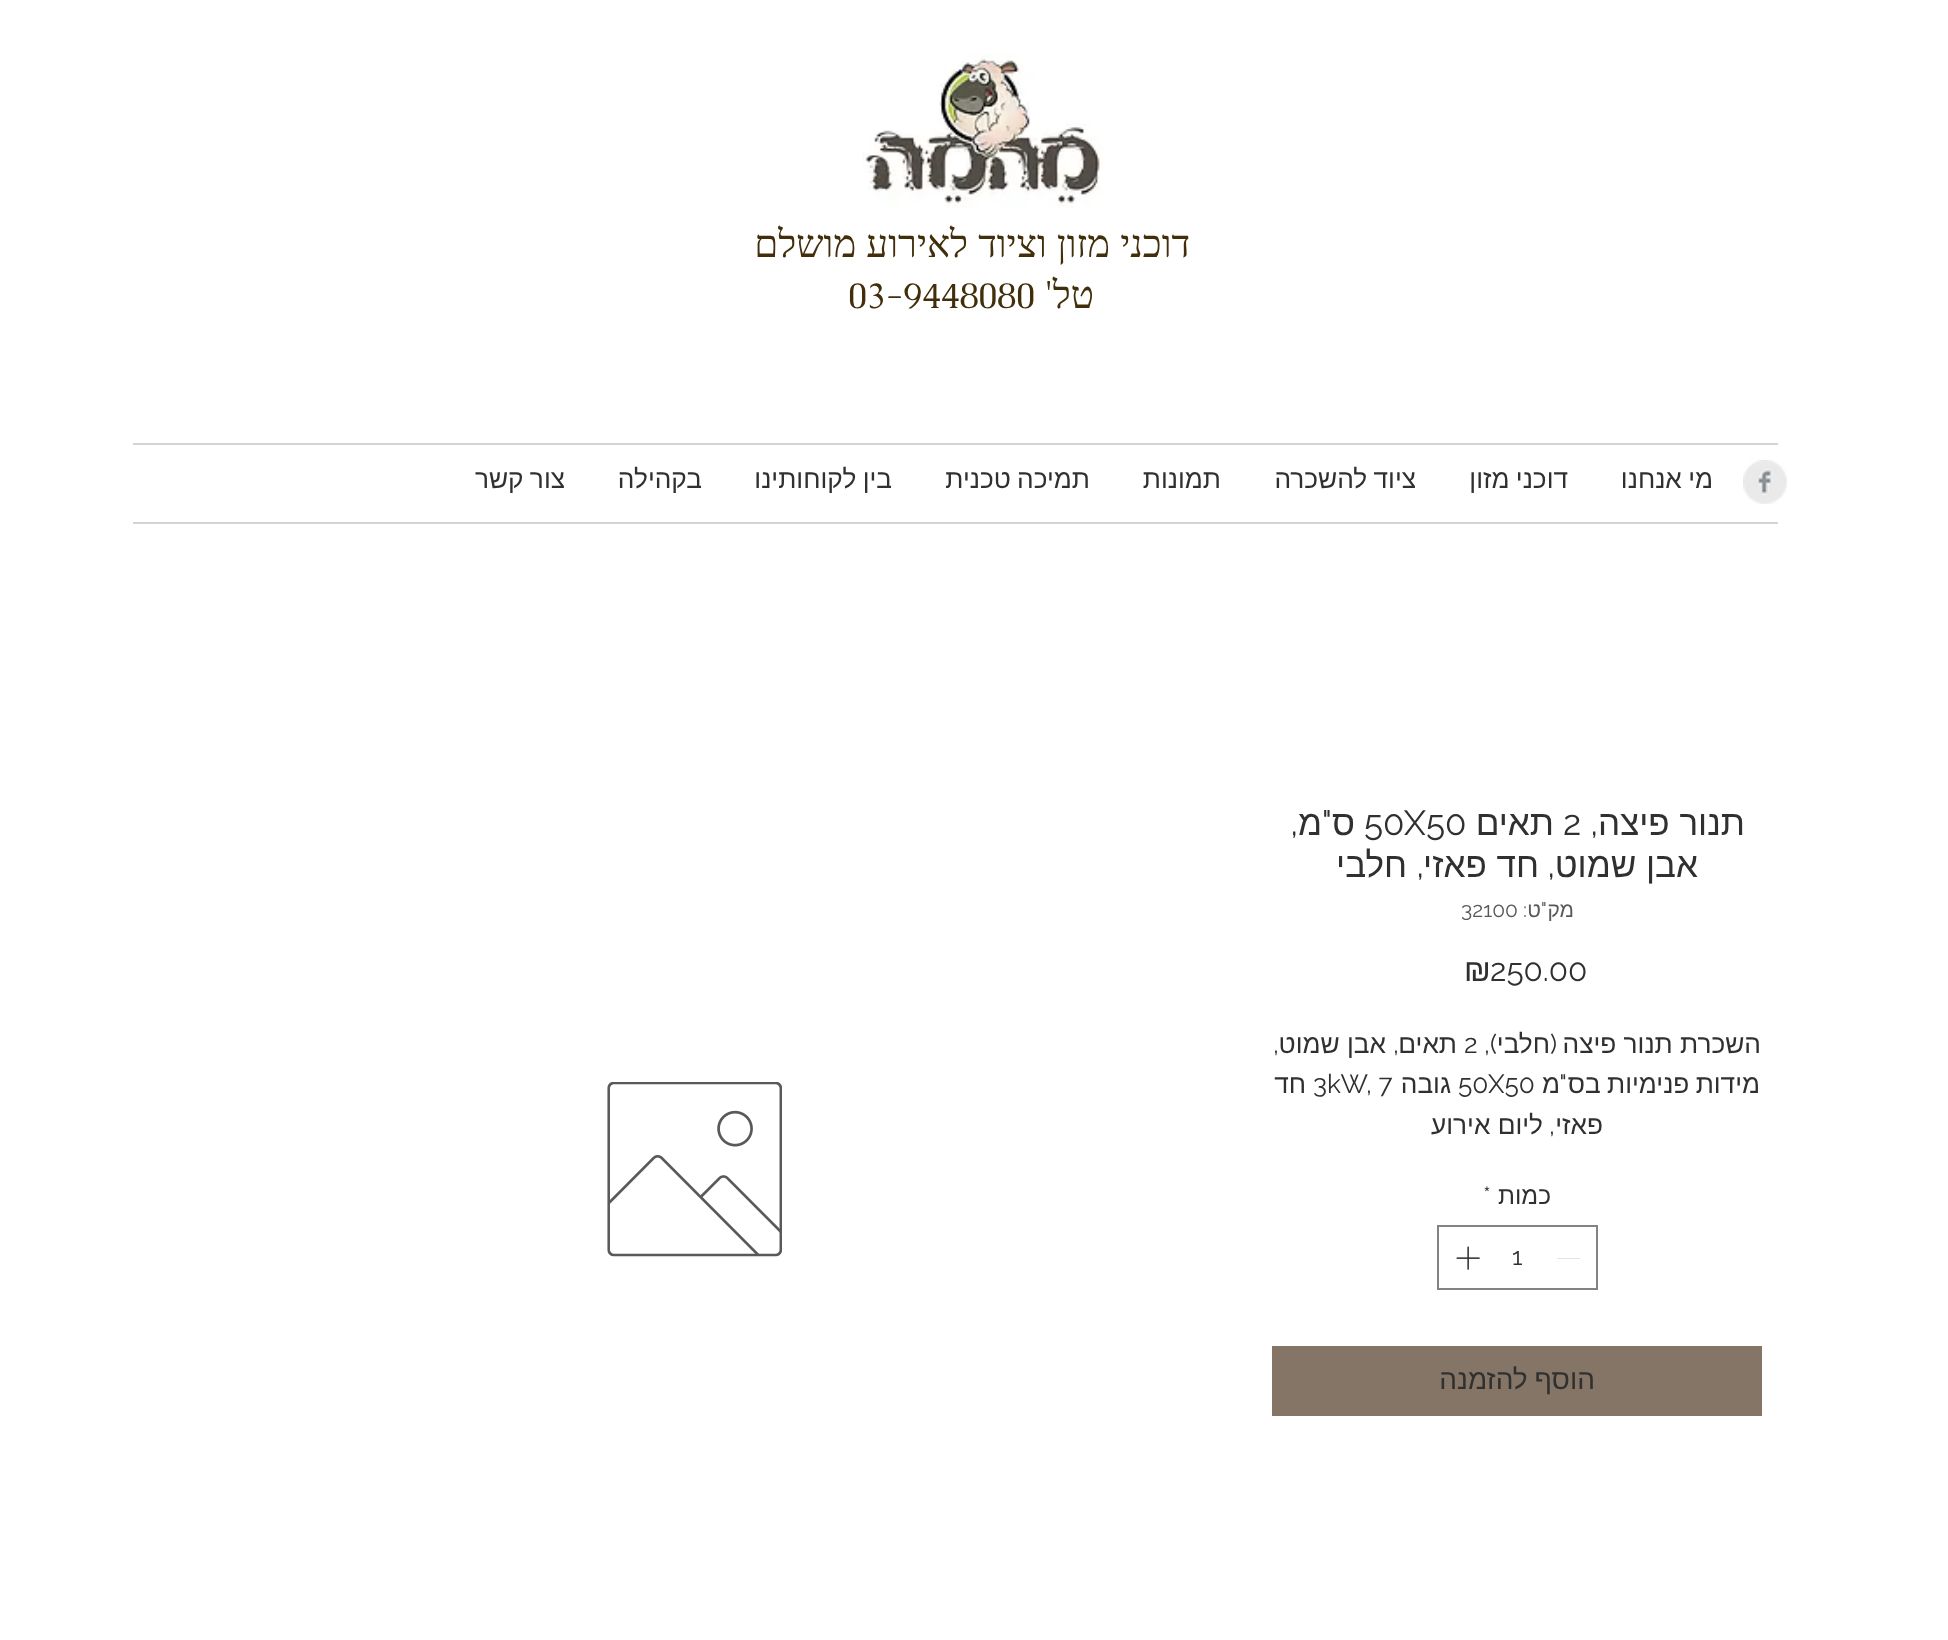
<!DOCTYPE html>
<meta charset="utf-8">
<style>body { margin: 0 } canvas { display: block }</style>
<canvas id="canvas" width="1948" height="1640"></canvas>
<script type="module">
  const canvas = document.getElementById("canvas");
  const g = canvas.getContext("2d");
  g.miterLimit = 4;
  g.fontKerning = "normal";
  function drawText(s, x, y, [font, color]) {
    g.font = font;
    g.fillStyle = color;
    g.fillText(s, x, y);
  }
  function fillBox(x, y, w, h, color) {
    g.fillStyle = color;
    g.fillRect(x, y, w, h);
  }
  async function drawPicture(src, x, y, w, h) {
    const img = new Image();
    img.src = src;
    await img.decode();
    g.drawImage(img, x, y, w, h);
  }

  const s1 = ["38.5px Liberation Serif", "#412E0B"];
  const s2 = ["38.5px Caudex", "#412E0B"];
  const s3 = ["35px Caudex", "#412E0B"];
  const s4 = ["26.25px Liberation Sans", "#303030"];
  const s5 = ["35px Liberation Sans", "#303030"];
  const s6 = ["35px Raleway", "#303030"];
  const s7 = ["21px Liberation Sans", "#595959"];
  const s8 = ["21px Raleway", "#595959"];
  const s9 = ["31.5px Raleway", "#303030"];
  const s10 = ["31.5px Liberation Sans", "#303030"];
  const s11 = ["26.25px Raleway", "#303030"];
  const s12 = ["24.5px Liberation Sans", "#303030"];
  const s13 = ["24.5px Raleway", "#303030"];
  const s14 = ["28px Liberation Sans", "#303030"];

  fillBox(0, 0, 1948, 1640, "#FFFFFF");
  await drawPicture("pic1.png", 862, 53, 241, 155);
  g.wordSpacing = "0.5px";
  g.direction = "rtl";
  drawText("דוכני מזון וציוד לאירוע מושלם", 1190, 257, s1);
  g.wordSpacing = "0px";
  drawText("טל", 1094, 308, s1);
  drawText("'", 1053, 308, s2);
  g.direction = "ltr";
  drawText("03-9448080", 848, 308, s3);
  fillBox(133, 443, 1645, 2, "#D4D4D4");
  await drawPicture("pic2.png", 1743, 460, 44, 44);
  g.wordSpacing = "-1px";
  g.direction = "rtl";
  drawText("מי אנחנו", 1713, 488, s4);
  drawText("דוכני מזון", 1568, 488, s4);
  drawText("ציוד להשכרה", 1416, 488, s4);
  g.wordSpacing = "0px";
  drawText("תמונות", 1221, 488, s4);
  g.wordSpacing = "-1px";
  drawText("תמיכה טכנית", 1090, 488, s4);
  drawText("בין לקוחותינו", 892, 488, s4);
  g.wordSpacing = "0px";
  drawText("בקהילה", 702, 488, s4);
  g.wordSpacing = "-1px";
  drawText("צור קשר", 565, 488, s4);
  fillBox(133, 522, 1645, 2, "#D4D4D4");
  g.wordSpacing = "0px";
  drawText("תנור פיצה", 1745, 835, s5);
  drawText(",", 1598, 835, s6);
  g.direction = "ltr";
  drawText("2", 1563, 835, s6);
  g.direction = "rtl";
  drawText("תאים", 1554, 835, s5);
  g.direction = "ltr";
  drawText("50X50", 1364, 835, s6);
  g.direction = "rtl";
  drawText("ס", 1355, 835, s5);
  drawText("\"", 1332, 835, s6);
  drawText("מ", 1322, 835, s5);
  drawText(",", 1298, 835, s6);
  drawText("אבן שמוט", 1698, 877, s5);
  drawText(",", 1555, 877, s6);
  drawText("חד פאזי", 1539, 877, s5);
  drawText(",", 1424, 877, s6);
  drawText("חלבי", 1407, 877, s5);
  drawText("מק", 1574, 917, s7);
  drawText("\"", 1547, 917, s8);
  drawText("ט", 1541, 917, s7);
  drawText(":", 1527, 917, s8);
  g.direction = "ltr";
  drawText("32100", 1461, 917, s8);
  drawText("250.00", 1490, 981, s9);
  drawText("₪", 1464, 981, s10);
  g.direction = "rtl";
  drawText("השכרת תנור פיצה", 1761, 1053, s4);
  drawText("(", 1557, 1053, s11);
  drawText("חלבי", 1550, 1053, s4);
  drawText("),", 1497, 1053, s11);
  g.direction = "ltr";
  drawText("2", 1464, 1053, s11);
  g.direction = "rtl";
  drawText("תאים", 1457, 1053, s4);
  drawText(",", 1399, 1053, s11);
  drawText("אבן שמוט", 1386, 1053, s4);
  drawText(",", 1279, 1053, s11);
  g.wordSpacing = "-1px";
  drawText("מידות פנימיות בס", 1760, 1093, s4);
  g.wordSpacing = "0px";
  drawText("\"", 1567, 1093, s11);
  drawText("מ", 1560, 1093, s4);
  g.direction = "ltr";
  drawText("50X50", 1458, 1093, s11);
  g.direction = "rtl";
  drawText("גובה", 1451, 1093, s4);
  g.direction = "ltr";
  drawText("3kW, 7", 1313, 1093, s11);
  g.direction = "rtl";
  drawText("חד", 1306, 1093, s4);
  drawText("פאזי", 1603, 1134, s4);
  drawText(",", 1555, 1134, s11);
  drawText("ליום אירוע", 1543, 1134, s4);
  drawText("כמות", 1551, 1204, s12);
  g.direction = "ltr";
  drawText("*", 1483, 1204, s13);
  g.strokeStyle = "#838383";
  g.lineWidth = 2;
  g.strokeRect(1438, 1226, 159, 63);
  fillBox(1557, 1258, 23, 1, "#E3E3E3");
  drawText("1", 1512, 1265, s13);
  await drawPicture("pic3.png", 1456, 1246, 24, 24);
  fillBox(1272, 1346, 490, 70, "#857567");
  g.wordSpacing = "-1px";
  g.direction = "rtl";
  drawText("הוסף להזמנה", 1595, 1389, s14);
  await drawPicture("pic4.png", 607, 1082, 175, 175);
</script>
